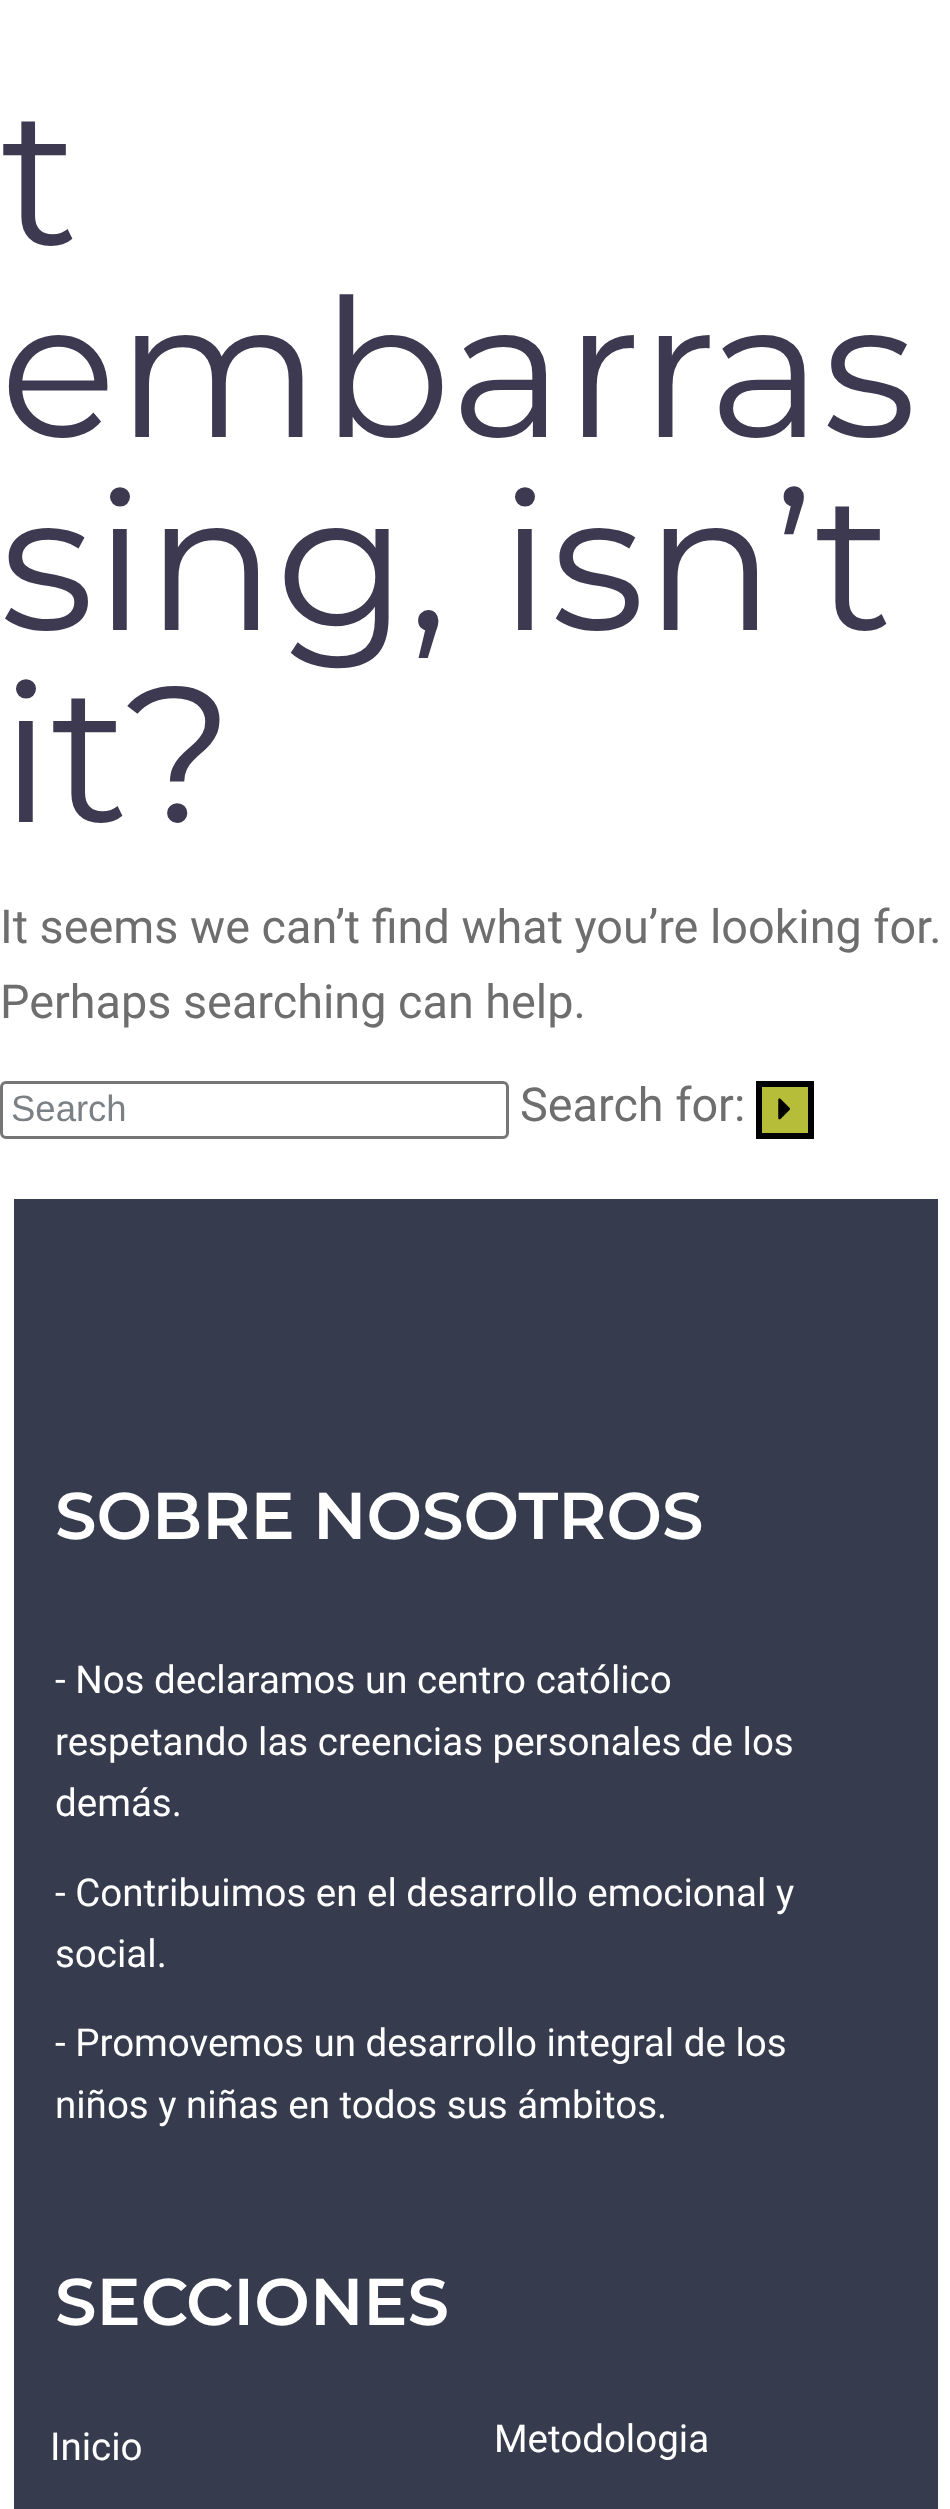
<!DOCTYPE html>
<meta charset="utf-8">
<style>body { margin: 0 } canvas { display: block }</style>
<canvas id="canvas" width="950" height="2509"></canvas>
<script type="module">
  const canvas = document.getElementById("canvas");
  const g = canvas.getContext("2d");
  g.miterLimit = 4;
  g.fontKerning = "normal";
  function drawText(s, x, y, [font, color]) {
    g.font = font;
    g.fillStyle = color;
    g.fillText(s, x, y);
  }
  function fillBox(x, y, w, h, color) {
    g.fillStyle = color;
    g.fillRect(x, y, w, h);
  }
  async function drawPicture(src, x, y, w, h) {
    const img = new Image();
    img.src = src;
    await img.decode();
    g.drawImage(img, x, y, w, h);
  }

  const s1 = ["192.5px Montserrat", "#3C3950"];
  const s2 = ["46.75px Roboto", "#6E6E6E"];
  const s3 = ["36.5px Liberation Sans", "#7B8085"];
  const s4 = ["600 66px Montserrat", "#FFFFFF"];
  const s5 = ["38.5px Roboto", "#FFFFFF"];

  fillBox(0, 0, 950, 2509, "#FFFFFF");
  drawText("t", 0, 245, s1);
  drawText("embarras", 0, 437, s1);
  drawText("sing, isn’t", 0, 630, s1);
  drawText("it?", 0, 822, s1);
  drawText("It seems we can’t find what you’re looking for.", 0, 943, s2);
  drawText("Perhaps searching can help.", 0, 1018, s2);
  g.beginPath();
  g.roundRect(1.5, 1082.5, 506, 55, 4.5);
  g.strokeStyle = "#767676";
  g.lineWidth = 3;
  g.stroke();
  drawText("Search", 11, 1121, s3);
  drawText("Search for:", 520, 1121, s2);
  g.fillStyle = "#B6BD39";
  g.beginPath();
  g.rect(759, 1084, 52, 52);
  g.fill();
  g.strokeStyle = "#000000";
  g.lineWidth = 6;
  g.stroke();
  await drawPicture("pic1.png", 778, 1098, 12, 22);
  fillBox(14, 1199, 924, 1310, "#363C4D");
  drawText("SOBRE NOSOTROS", 55, 1539, s4);
  drawText("- Nos declaramos un centro católico", 55, 1693, s5);
  drawText("respetando las creencias personales de los", 55, 1755, s5);
  drawText("demás.", 55, 1816, s5);
  drawText("- Contribuimos en el desarrollo emocional y", 55, 1906, s5);
  drawText("social.", 55, 1967, s5);
  drawText("- Promovemos un desarrollo integral de los", 55, 2056, s5);
  drawText("niños y niñas en todos sus ámbitos.", 55, 2118, s5);
  drawText("SECCIONES", 55, 2325, s4);
  drawText("Inicio", 50, 2460, s5);
  drawText("Metodologia", 494, 2452, s5);
</script>
